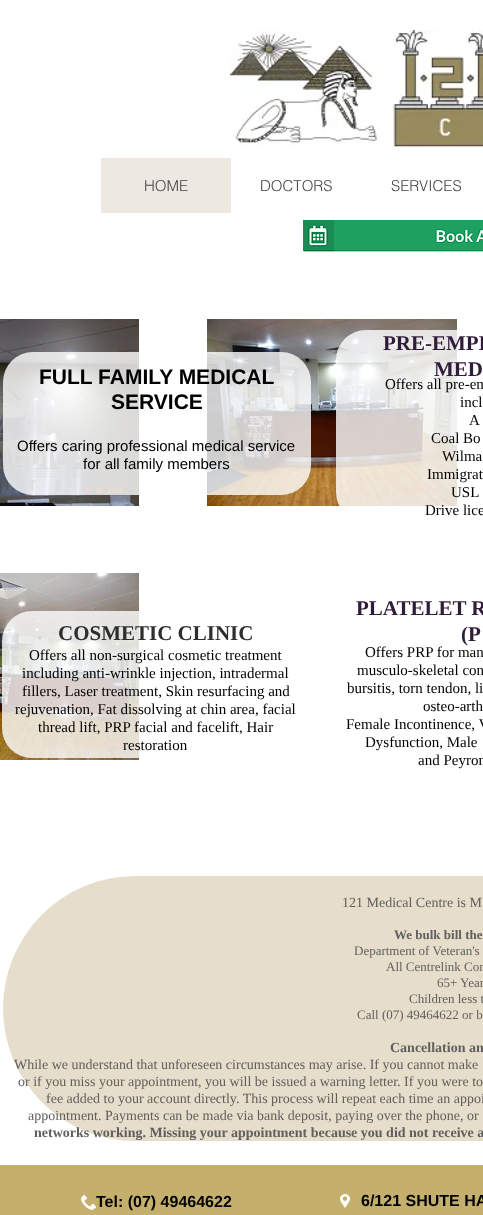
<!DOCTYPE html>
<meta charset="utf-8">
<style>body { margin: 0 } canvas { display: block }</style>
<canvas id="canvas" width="483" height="1215"></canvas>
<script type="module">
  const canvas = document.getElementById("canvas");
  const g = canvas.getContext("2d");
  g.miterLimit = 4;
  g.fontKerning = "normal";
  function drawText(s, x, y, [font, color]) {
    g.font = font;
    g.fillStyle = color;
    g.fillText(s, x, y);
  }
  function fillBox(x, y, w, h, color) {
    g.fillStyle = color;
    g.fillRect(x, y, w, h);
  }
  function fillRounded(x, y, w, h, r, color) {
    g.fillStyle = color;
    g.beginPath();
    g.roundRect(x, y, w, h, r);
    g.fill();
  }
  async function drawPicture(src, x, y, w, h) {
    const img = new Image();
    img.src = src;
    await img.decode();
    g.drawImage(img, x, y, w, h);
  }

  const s1 = ["300 15px helvetica", "#444444"];
  const s2 = ["bold 21px Liberation Sans", "#000000"];
  const s3 = ["15px Liberation Sans", "#000000"];
  const s4 = ["bold 21px Liberation Serif", "#301C38"];
  const s5 = ["15px Liberation Serif", "#000000"];
  const s6 = ["bold 21px Liberation Serif", "#2F2E2E"];
  const s7 = ["14px Liberation Serif", "#605E5E"];
  const s8 = ["bold 13px Liberation Serif", "#605E5E"];
  const s9 = ["13px Liberation Serif", "#605E5E"];
  const s10 = ["bold 14px Liberation Serif", "#605E5E"];
  const s11 = ["bold 16px Liberation Sans", "#000000"];

  fillBox(0, 0, 483, 1215, "#FFFFFF");
  await drawPicture("pic1.png", 230, 30, 253, 117);
  fillBox(101, 158, 130, 55, "#EDE9E1");
  drawText("HOME", 144, 191, s1);
  drawText("DOCTORS", 260, 191, s1);
  drawText("SERVICES", 391, 191, s1);
  await drawPicture("pic2.png", 303, 220, 180, 32);
  await drawPicture("pic3.png", 0, 319, 139, 187);
  await drawPicture("pic4.png", 207, 319, 250, 187);
  await drawPicture("pic5.png", 0, 573, 139, 187);
  fillRounded(3, 352, 308, 143, 30, "rgba(255, 255, 255, 0.8)");
  drawText("FULL FAMILY MEDICAL", 39, 384, s2);
  drawText("SERVICE", 111, 409, s2);
  drawText("Offers caring professional medical service", 17, 451, s3);
  drawText("for all family members", 83, 469, s3);
  fillRounded(336, 330, 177, 192, 30, "rgba(255, 255, 255, 0.8)");
  drawText("PRE-EMPL", 383, 350, s4);
  drawText("MED", 434, 376, s4);
  drawText("Offers all pre-em", 385, 389, s5);
  drawText("incl", 460, 407, s5);
  drawText("A", 469, 425, s5);
  drawText("Coal Bo", 431, 443, s5);
  drawText("Wilma", 442, 461, s5);
  drawText("Immigrat", 427, 479, s5);
  drawText("USL", 451, 497, s5);
  drawText("Drive lice", 425, 515, s5);
  fillRounded(2, 611, 309, 147, 30, "rgba(255, 255, 255, 0.8)");
  drawText("COSMETIC CLINIC", 58, 640, s6);
  drawText("Offers all non-surgical cosmetic treatment", 29, 660, s5);
  drawText("including anti-wrinkle injection, intradermal", 22, 678, s5);
  drawText("fillers, Laser treatment, Skin resurfacing and", 22, 696, s5);
  drawText("rejuvenation, Fat dissolving at chin area, facial", 15, 714, s5);
  drawText("thread lift, PRP facial and facelift, Hair", 38, 732, s5);
  drawText("restoration", 123, 750, s5);
  drawText("PLATELET R", 356, 615, s4);
  drawText("(P", 461, 641, s4);
  drawText("Offers PRP for man", 365, 657, s5);
  drawText("musculo-skeletal con", 357, 675, s5);
  drawText("bursitis, torn tendon, li", 347, 693, s5);
  drawText("osteo-arth", 423, 711, s5);
  drawText("Female Incontinence, V", 346, 729, s5);
  drawText("Dysfunction, Male", 365, 747, s5);
  drawText("and Peyron", 418, 765, s5);
  fillRounded(3, 876, 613, 265, 132.5, "#E6DECA");
  drawText("121 Medical Centre is M", 342, 907, s7);
  drawText("We bulk bill the", 394, 939, s8);
  drawText("Department of Veteran's", 354, 955, s9);
  drawText("All Centrelink Con", 386, 971, s9);
  drawText("65+ Year", 437, 987, s9);
  drawText("Children less t", 409, 1003, s9);
  drawText("Call (07) 49464622 or b", 357, 1019, s9);
  drawText("Cancellation an", 390, 1052, s10);
  drawText("While we understand that unforeseen circumstances may arise. If you cannot make", 14, 1069, s7);
  drawText("or if you miss your appointment, you will be issued a warning letter. If you were to", 18, 1086, s7);
  drawText("fee added to your account directly. This process will repeat each time an appoi", 46, 1103, s7);
  drawText("appointment. Payments can be made via bank deposit, paying over the phone, or", 28, 1120, s7);
  drawText("networks working. Missing your appointment because you did not receive a", 34, 1137, s10);
  fillBox(0, 1165, 483, 50, "#C4B06C");
  await drawPicture("pic6.png", 81, 1195, 15, 15);
  drawText("Tel: (07) 49464622", 96, 1207, s11);
  await drawPicture("pic7.png", 340, 1194, 10, 14);
  drawText("6/121 SHUTE HA", 361, 1206, s11);
</script>
